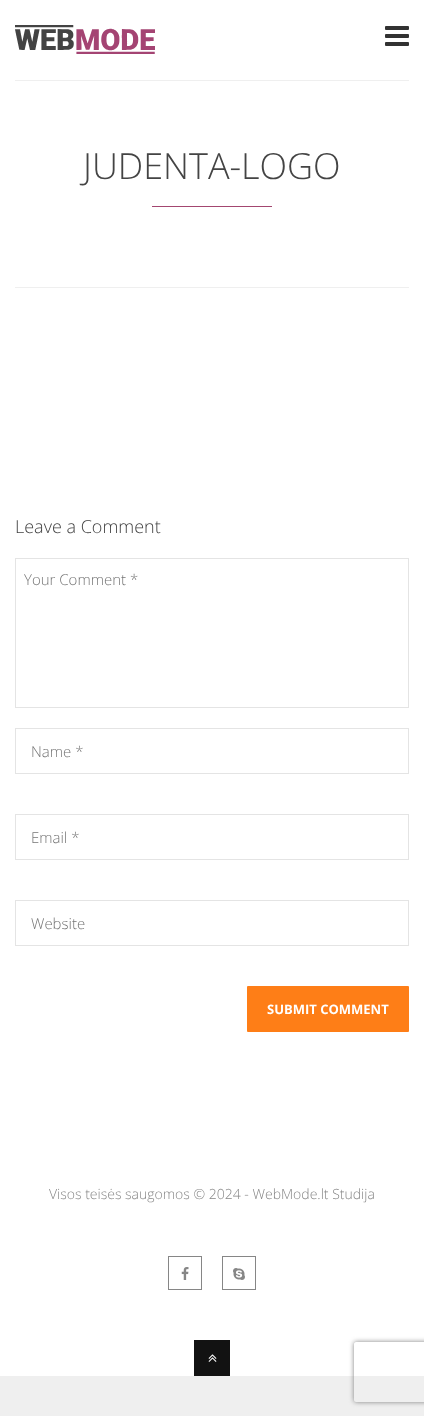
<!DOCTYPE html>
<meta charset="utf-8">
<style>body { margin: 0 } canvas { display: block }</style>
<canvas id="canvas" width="424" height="1416"></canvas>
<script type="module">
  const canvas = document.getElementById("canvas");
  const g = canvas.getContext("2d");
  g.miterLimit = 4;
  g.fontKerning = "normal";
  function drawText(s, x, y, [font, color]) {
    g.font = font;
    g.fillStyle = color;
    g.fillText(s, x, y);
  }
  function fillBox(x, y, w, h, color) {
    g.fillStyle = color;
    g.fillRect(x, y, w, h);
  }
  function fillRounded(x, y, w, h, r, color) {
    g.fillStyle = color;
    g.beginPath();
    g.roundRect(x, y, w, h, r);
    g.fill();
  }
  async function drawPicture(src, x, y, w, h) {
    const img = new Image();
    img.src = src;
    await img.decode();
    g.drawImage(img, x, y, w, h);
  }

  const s1 = ["300 36px Open Sans", "#444444"];
  const s2 = ["300 18px Open Sans", "#444444"];
  const s3 = ["300 15px Open Sans", "#757575"];
  const s4 = ["bold 13px Open Sans", "#FFFFFF"];
  const s5 = ["300 14px Open Sans", "#868686"];

  fillBox(0, 0, 424, 1416, "#EFEFEF");
  fillBox(0, 0, 424, 1376, "#FFFFFF");
  await drawPicture("pic1.png", 15, 25, 140, 29);
  await drawPicture("pic2.png", 385, 26, 24, 20);
  fillBox(15, 80, 394, 1, "#EFEFEF");
  fillBox(15, 287, 394, 1, "#EFEFEF");
  drawText("JUDENTA-LOGO", 83, 179, s1);
  fillBox(152, 206, 120, 1, "#A34670");
  drawText("Leave a Comment", 15, 533, s2);
  g.strokeStyle = "#E4E4E4";
  g.strokeRect(15.5, 558.5, 393, 149);
  drawText("Your Comment *", 24, 585, s3);
  g.strokeRect(15.5, 728.5, 393, 45);
  drawText("Name *", 31, 757, s3);
  g.strokeRect(15.5, 814.5, 393, 45);
  drawText("Email *", 31, 843, s3);
  g.strokeRect(15.5, 900.5, 393, 45);
  drawText("Website", 31, 929, s3);
  fillRounded(247, 986, 162, 46, 1, "#FE7E17");
  drawText("SUBMIT COMMENT", 267, 1014, s4);
  drawText("Visos teisės saugomos © 2024 - WebMode.lt Studija", 49, 1199, s5);
  g.strokeStyle = "#868686";
  g.strokeRect(168.5, 1256.5, 33, 33);
  await drawPicture("pic3.png", 181, 1267, 8, 13);
  g.strokeRect(222.5, 1256.5, 33, 33);
  await drawPicture("pic4.png", 233, 1268, 12, 12);
  fillBox(194, 1340, 36, 36, "#121212");
  await drawPicture("pic5.png", 208, 1354, 9, 8);
  g.save();
  g.beginPath();
  g.moveTo(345, 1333);
  g.lineTo(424, 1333);
  g.lineTo(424, 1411);
  g.lineTo(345, 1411);
  g.closePath();
  g.moveTo(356, 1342);
  g.lineTo(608, 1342);
  g.bezierCurveTo(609, 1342, 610, 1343, 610, 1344);
  g.lineTo(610, 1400);
  g.bezierCurveTo(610, 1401, 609, 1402, 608, 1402);
  g.lineTo(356, 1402);
  g.bezierCurveTo(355, 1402, 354, 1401, 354, 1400);
  g.lineTo(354, 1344);
  g.bezierCurveTo(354, 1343, 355, 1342, 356, 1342);
  g.closePath();
  g.clip("evenodd");
  g.fillStyle = "#808080";
  g.filter = "blur(2.5px)";
  g.beginPath();
  g.roundRect(354, 1342, 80, 60, 2);
  g.fill();
  g.filter = "none";
  g.restore();
</script>
